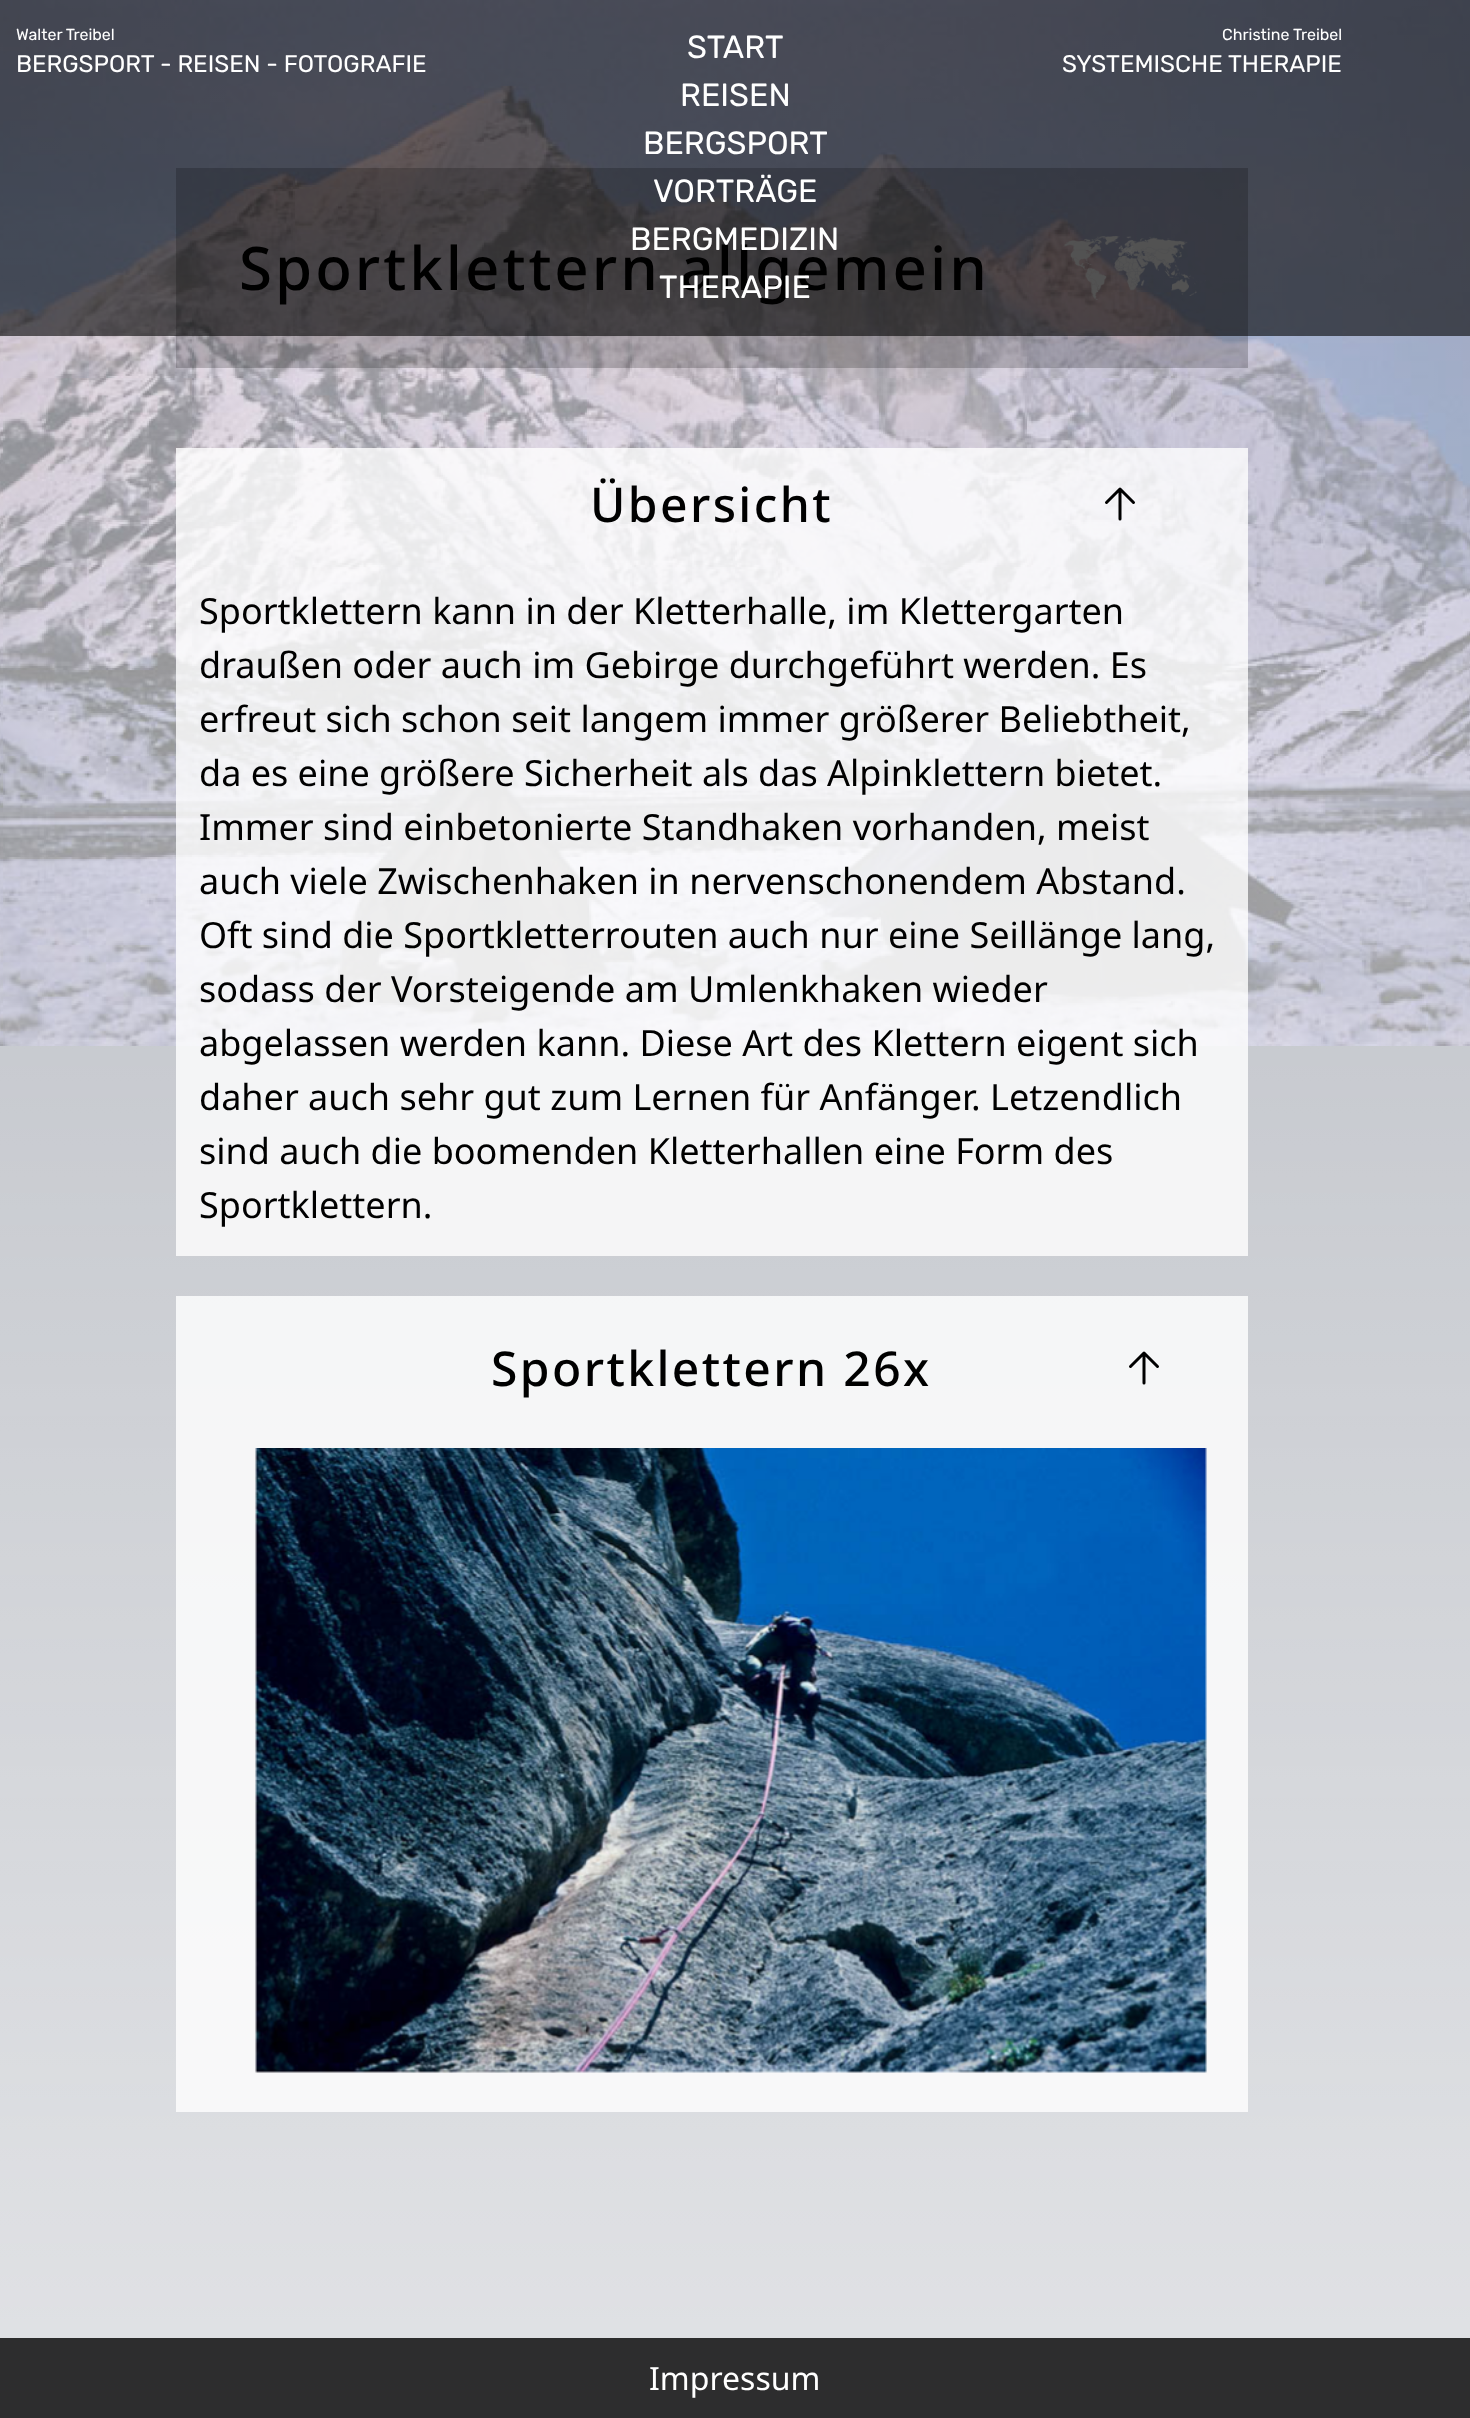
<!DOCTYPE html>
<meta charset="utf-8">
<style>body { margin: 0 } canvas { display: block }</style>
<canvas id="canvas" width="1470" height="2418"></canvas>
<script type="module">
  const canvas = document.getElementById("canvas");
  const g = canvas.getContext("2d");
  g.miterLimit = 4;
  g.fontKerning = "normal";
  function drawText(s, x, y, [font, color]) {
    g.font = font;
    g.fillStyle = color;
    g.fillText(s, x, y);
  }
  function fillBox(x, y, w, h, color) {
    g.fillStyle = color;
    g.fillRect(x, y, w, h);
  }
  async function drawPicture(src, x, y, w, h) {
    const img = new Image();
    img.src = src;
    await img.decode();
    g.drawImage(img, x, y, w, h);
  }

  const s1 = ["500 60px Noto Sans", "#000000"];
  const s2 = ["300 16px Rubik", "#FFFFFF"];
  const s3 = ["300 24px Rubik", "#FFFFFF"];
  const s4 = ["300 32px Rubik", "#FFFFFF"];
  const s5 = ["500 48px Noto Sans", "#000000"];
  const s6 = ["36px Noto Sans", "#000000"];
  const s7 = ["32px Noto Sans", "#FFFFFF"];

  fillBox(0, 0, 1470, 2418, "#6B7280");
  await drawPicture("pic1.png", 0, 0, 1470, 2338);
  fillBox(176, 168, 1072, 200, "rgba(0, 0, 0, 0.2)");
  g.letterSpacing = "3px";
  drawText("Sportklettern allgemein", 239, 290, s1);
  await drawPicture("pic2.png", 1063, 236, 143, 64);
  fillBox(0, 0, 1470, 336, "rgba(0, 0, 0, 0.6)");
  g.letterSpacing = "0px";
  drawText("Walter Treibel", 16, 40, s2);
  drawText("BERGSPORT - REISEN - FOTOGRAFIE", 16, 72, s3);
  drawText("START", 687, 58, s4);
  drawText("REISEN", 680, 106, s4);
  drawText("BERGSPORT", 643, 154, s4);
  drawText("VORTRÄGE", 653, 202, s4);
  drawText("BERGMEDIZIN", 630, 250, s4);
  drawText("THERAPIE", 659, 298, s4);
  drawText("Christine Treibel", 1222, 40, s2);
  drawText("SYSTEMISCHE THERAPIE", 1062, 72, s3);
  fillBox(176, 448, 1072, 808, "rgba(255, 255, 255, 0.8)");
  g.letterSpacing = "2.4px";
  drawText("Übersicht", 590, 522, s5);
  g.beginPath();
  g.moveTo(1120, 519);
  g.lineTo(1120, 489);
  g.moveTo(1120, 489);
  g.lineTo(1106.5, 502.5);
  g.moveTo(1120, 489);
  g.lineTo(1133.5, 502.5);
  g.strokeStyle = "#000000";
  g.lineWidth = 3;
  g.lineCap = "round";
  g.lineJoin = "round";
  g.stroke();
  g.letterSpacing = "0px";
  drawText("Sportklettern kann in der Kletterhalle, im Klettergarten", 199, 624, s6);
  drawText("draußen oder auch im Gebirge durchgeführt werden. Es", 199, 678, s6);
  drawText("erfreut sich schon seit langem immer größerer Beliebtheit,", 199, 732, s6);
  drawText("da es eine größere Sicherheit als das Alpinklettern bietet.", 199, 786, s6);
  drawText("Immer sind einbetonierte Standhaken vorhanden, meist", 199, 840, s6);
  drawText("auch viele Zwischenhaken in nervenschonendem Abstand.", 199, 894, s6);
  drawText("Oft sind die Sportkletterrouten auch nur eine Seillänge lang,", 199, 948, s6);
  drawText("sodass der Vorsteigende am Umlenkhaken wieder", 199, 1002, s6);
  drawText("abgelassen werden kann. Diese Art des Klettern eigent sich", 199, 1056, s6);
  drawText("daher auch sehr gut zum Lernen für Anfänger. Letzendlich", 199, 1110, s6);
  drawText("sind auch die boomenden Kletterhallen eine Form des", 199, 1164, s6);
  drawText("Sportklettern.", 199, 1218, s6);
  fillBox(176, 1296, 1072, 816, "rgba(255, 255, 255, 0.8)");
  g.letterSpacing = "2.4px";
  drawText("Sportklettern 26x", 491, 1386, s5);
  g.beginPath();
  g.moveTo(1144, 1383);
  g.lineTo(1144, 1353);
  g.moveTo(1144, 1353);
  g.lineTo(1130.5, 1366.5);
  g.moveTo(1144, 1353);
  g.lineTo(1157.5, 1366.5);
  g.stroke();
  await drawPicture("pic3.png", 255, 1448, 952, 625);
  fillBox(0, 2338, 1470, 80, "#2D2D2E");
  g.letterSpacing = "0px";
  drawText("Impressum", 649, 2390, s7);
</script>
